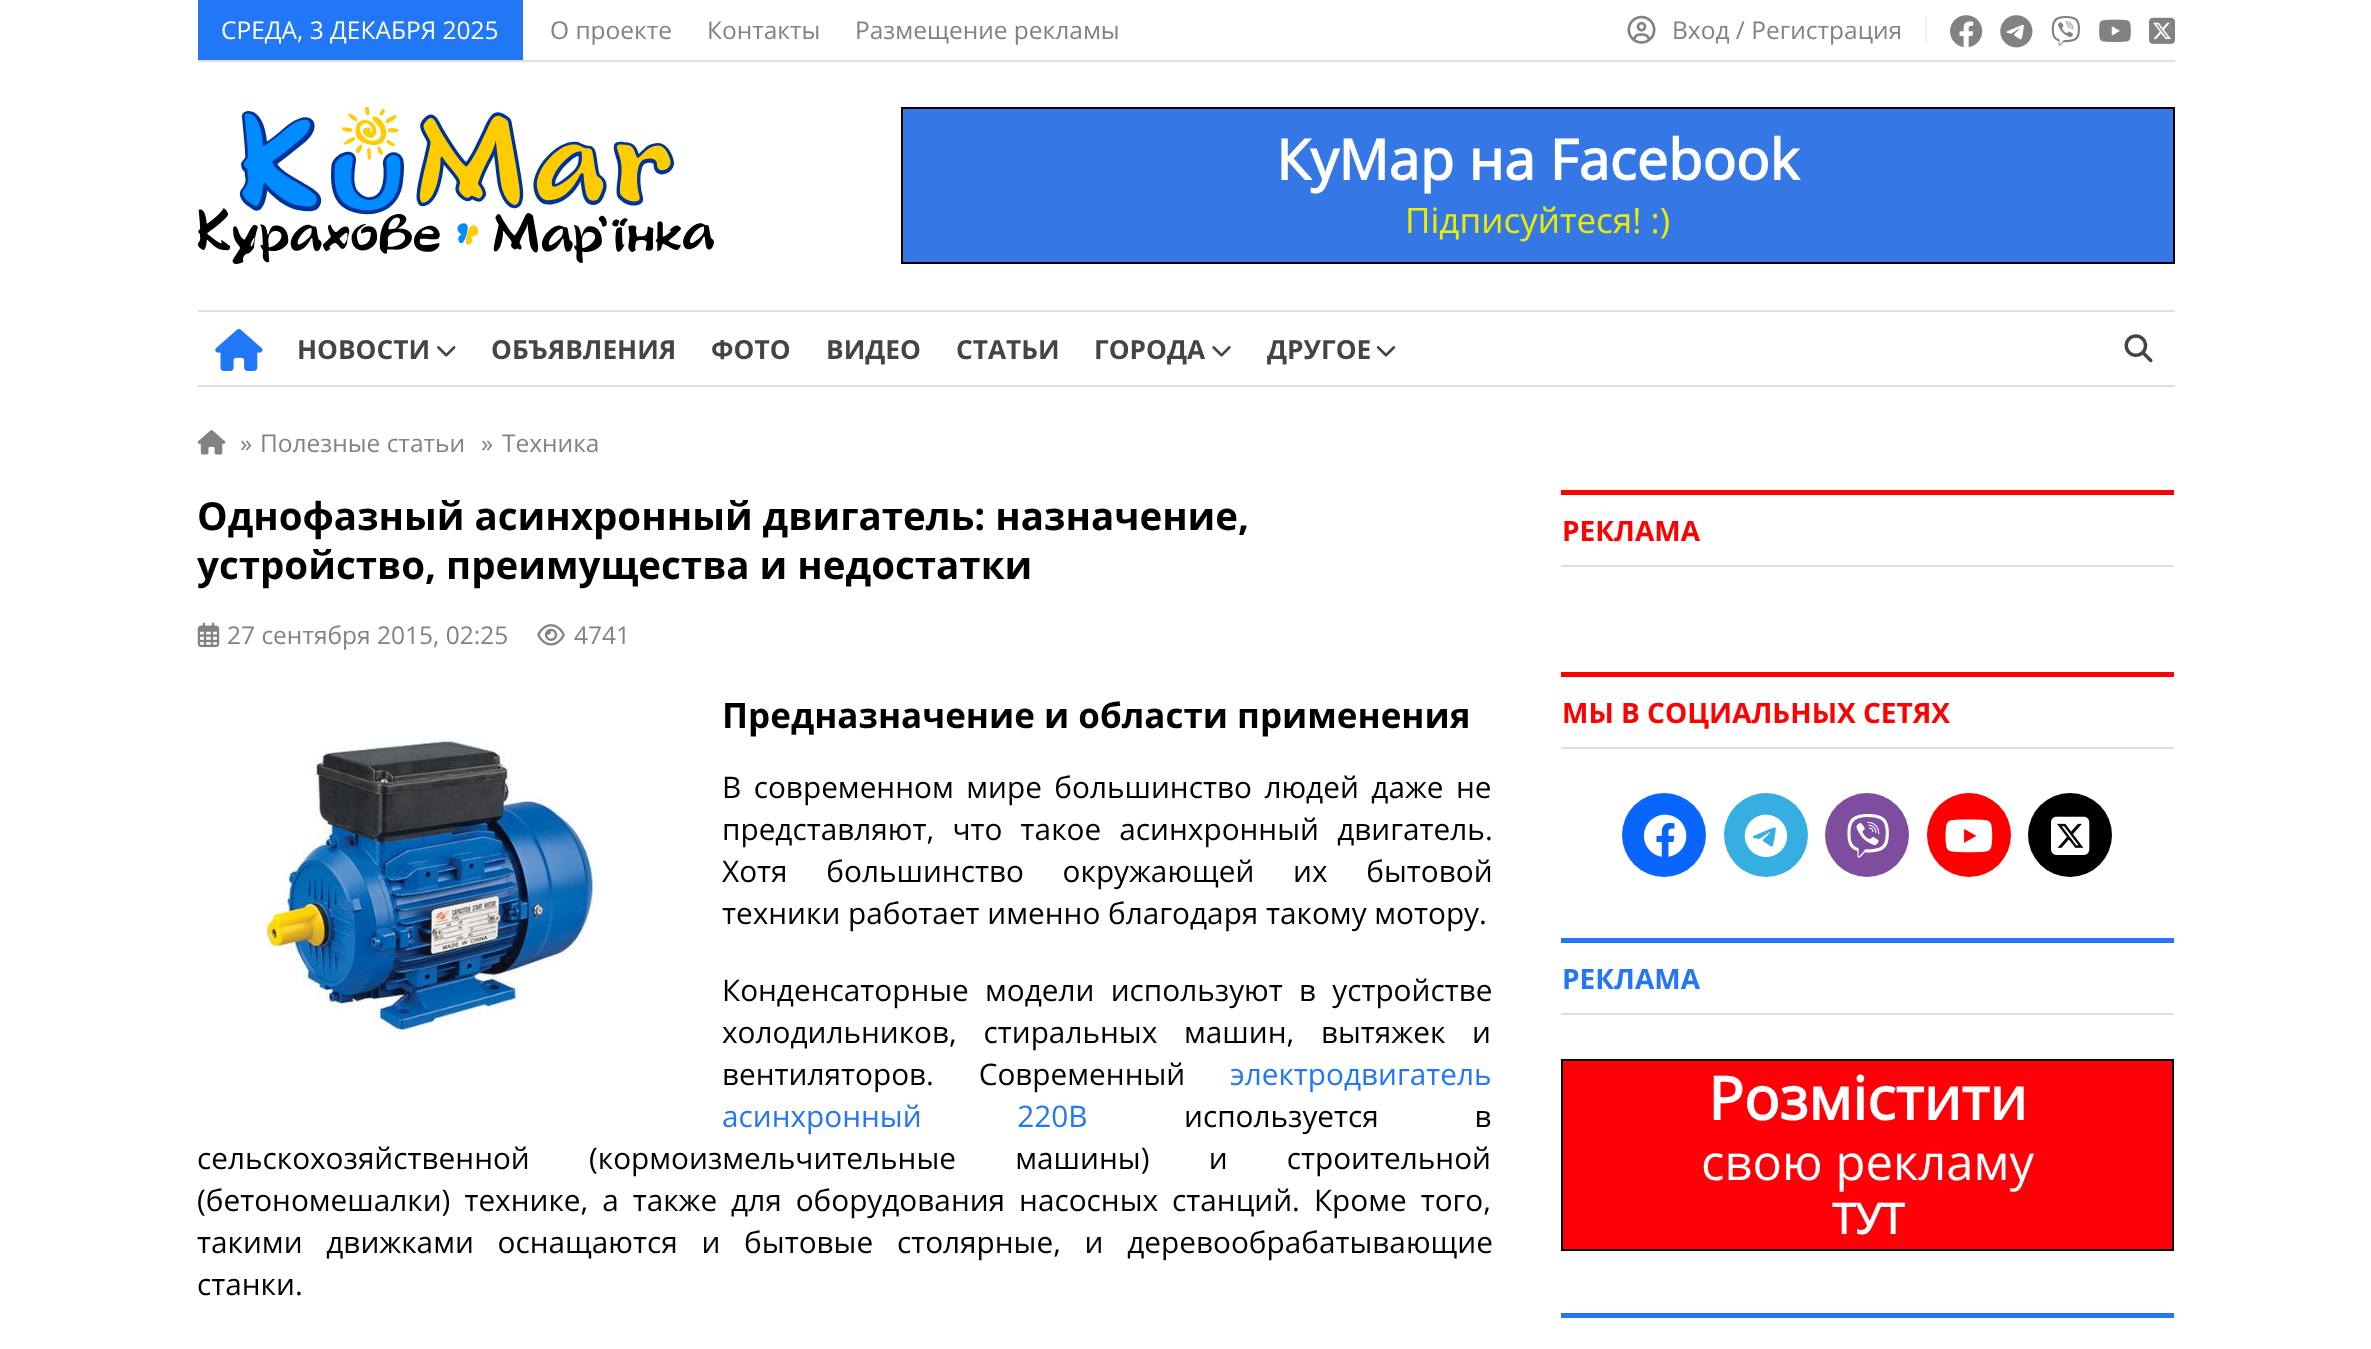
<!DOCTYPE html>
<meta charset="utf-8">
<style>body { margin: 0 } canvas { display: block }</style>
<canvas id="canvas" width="2371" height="1349"></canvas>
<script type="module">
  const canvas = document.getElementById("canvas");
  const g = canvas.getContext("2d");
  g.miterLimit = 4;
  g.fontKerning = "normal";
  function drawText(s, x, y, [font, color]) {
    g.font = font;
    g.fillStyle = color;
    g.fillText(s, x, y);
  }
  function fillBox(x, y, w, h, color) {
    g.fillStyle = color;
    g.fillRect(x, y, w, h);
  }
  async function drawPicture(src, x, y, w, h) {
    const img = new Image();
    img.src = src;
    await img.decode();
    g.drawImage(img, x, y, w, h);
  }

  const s1 = ["24.5px Open Sans", "#FFFFFF"];
  const s2 = ["24.5px Open Sans", "#828282"];
  const s3 = ["bold 56px Open Sans", "#FFFFFF"];
  const s4 = ["35px Open Sans", "#EDED00"];
  const s5 = ["bold 26.25px 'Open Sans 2'", "#444444"];
  const s6 = ["bold 38.5px 'Open Sans 2'", "#000000"];
  const s7 = ["bold 35px 'Open Sans 2'", "#000000"];
  const s8 = ["29.75px Open Sans", "#000000"];
  const s9 = ["29.75px Open Sans", "#2277F6"];
  const s10 = ["bold 28px 'Open Sans 2'", "#FF0100"];
  const s11 = ["bold 28px 'Open Sans 2'", "#2277F6"];
  const s12 = ["bold 59.5px Open Sans", "#FFFFFF"];
  const s13 = ["49px Open Sans", "#FFFFFF"];
  const s14 = ["bold 42px Open Sans", "#FFFFFF"];

  fillBox(0, 0, 2371, 1349, "#FFFFFF");
  fillBox(198, 60, 1977, 2, "#E0E0E0");
  fillBox(198, 0, 325, 60, "#2277F6");
  drawText("СРЕДА, 3 ДЕКАБРЯ 2025", 221, 39, s1);
  drawText("О проекте", 550, 39, s2);
  drawText("Контакты", 707, 39, s2);
  drawText("Размещение рекламы", 855, 39, s2);
  fillBox(1925, 16, 2, 28, "#F2F2F2");
  await drawPicture("pic1.png", 1627, 15, 29, 29);
  drawText("Вход / Регистрация", 1672, 39, s2);
  await drawPicture("pic2.png", 1950, 15, 33, 33);
  await drawPicture("pic3.png", 2000, 15, 33, 33);
  await drawPicture("pic4.png", 2051, 16, 29, 30);
  await drawPicture("pic5.png", 2099, 19, 32, 23);
  await drawPicture("pic6.png", 2149, 17, 26, 27);
  fillBox(198, 310, 1977, 2, "#E0E0E0");
  await drawPicture("pic7.png", 198, 107, 516, 157);
  fillBox(903, 109, 1270, 153, "#3578E5");
  g.strokeStyle = "#000000";
  g.lineWidth = 2;
  g.strokeRect(902, 108, 1272, 155);
  drawText("КуМар на Facebook", 1276, 180, s3);
  drawText("Підписуйтеся! :)", 1405, 233, s4);
  fillBox(198, 385, 1977, 2, "#E0E0E0");
  await drawPicture("pic8.png", 215, 329, 48, 42);
  drawText("НОВОСТИ", 297, 359, s5);
  await drawPicture("pic9.png", 437, 346, 19, 11);
  drawText("ОБЪЯВЛЕНИЯ", 491, 359, s5);
  drawText("ФОТО", 711, 359, s5);
  drawText("ВИДЕО", 826, 359, s5);
  drawText("СТАТЬИ", 956, 359, s5);
  drawText("ГОРОДА", 1094, 359, s5);
  await drawPicture("pic10.png", 1212, 346, 19, 11);
  drawText("ДРУГОЕ", 1267, 359, s5);
  await drawPicture("pic11.png", 1376, 346, 20, 11);
  await drawPicture("pic12.png", 2124, 334, 29, 29);
  await drawPicture("pic13.png", 197, 430, 29, 25);
  drawText("»", 240, 452, s2);
  drawText("Полезные статьи", 260, 452, s2);
  drawText("»", 481, 452, s2);
  drawText("Техника", 502, 452, s2);
  drawText("Однофазный асинхронный двигатель: назначение,", 197, 530, s6);
  drawText("устройство, преимущества и недостатки", 197, 579, s6);
  await drawPicture("pic14.png", 197, 622, 23, 26);
  drawText("27 сентября 2015, 02:25", 227, 644, s2);
  await drawPicture("pic15.png", 537, 624, 28, 22);
  drawText("4741", 574, 644, s2);
  drawText("Предназначение и области применения", 722, 728, s7);
  await drawPicture("pic16.png", 263, 739, 336, 301);
  g.wordSpacing = "4.75px";
  drawText("В современном мире большинство людей даже не", 722, 798, s8);
  g.wordSpacing = "10.5px";
  drawText("представляют, что такое асинхронный двигатель.", 722, 840, s8);
  g.wordSpacing = "31px";
  drawText("Хотя большинство окружающей их бытовой", 722, 882, s8);
  g.wordSpacing = "0px";
  drawText("техники работает именно благодаря такому мотору.", 722, 924, s8);
  g.wordSpacing = "8.5px";
  drawText("Конденсаторные модели используют в устройстве", 722, 1001, s8);
  g.wordSpacing = "19px";
  drawText("холодильников, стиральных машин, вытяжек и", 722, 1043, s8);
  g.wordSpacing = "37px";
  drawText("вентиляторов. Современный", 722, 1085, s8);
  g.wordSpacing = "0px";
  drawText("электродвигатель", 1230, 1085, s9);
  g.wordSpacing = "88px";
  drawText("асинхронный 220В", 722, 1127, s9);
  drawText("используется в", 1184, 1127, s8);
  g.wordSpacing = "51.5px";
  drawText("сельскохозяйственной (кормоизмельчительные машины) и строительной", 197, 1169, s8);
  g.wordSpacing = "6.25px";
  drawText("(бетономешалки) технике, а также для оборудования насосных станций. Кроме того,", 197, 1211, s8);
  g.wordSpacing = "16px";
  drawText("такими движками оснащаются и бытовые столярные, и деревообрабатывающие", 197, 1253, s8);
  g.wordSpacing = "0px";
  drawText("станки.", 197, 1295, s8);
  fillBox(1561, 490, 613, 5, "#FF0100");
  fillBox(1561, 565, 613, 2, "#E0E0E0");
  drawText("РЕКЛАМА", 1562, 541, s10);
  fillBox(1561, 672, 613, 5, "#FF0100");
  fillBox(1561, 747, 613, 2, "#E0E0E0");
  drawText("МЫ В СОЦИАЛЬНЫХ СЕТЯХ", 1562, 723, s10);
  g.fillStyle = "#0866FF";
  g.beginPath();
  g.arc(1664, 835, 42, 0, Math.PI * 2);
  g.fill();
  await drawPicture("pic17.png", 1643, 814, 44, 43);
  g.fillStyle = "#37AEE2";
  g.beginPath();
  g.arc(1766, 835, 42, 0, Math.PI * 2);
  g.fill();
  await drawPicture("pic18.png", 1744, 814, 44, 43);
  g.fillStyle = "#7F4DA0";
  g.beginPath();
  g.arc(1867, 835, 42, 0, Math.PI * 2);
  g.fill();
  await drawPicture("pic19.png", 1847, 814, 42, 44);
  g.fillStyle = "#FF0000";
  g.beginPath();
  g.arc(1969, 835, 42, 0, Math.PI * 2);
  g.fill();
  await drawPicture("pic20.png", 1945, 819, 48, 34);
  g.fillStyle = "#000000";
  g.beginPath();
  g.arc(2070, 835, 42, 0, Math.PI * 2);
  g.fill();
  await drawPicture("pic21.png", 2051, 816, 39, 39);
  fillBox(1561, 938, 613, 5, "#2277F6");
  fillBox(1561, 1013, 613, 2, "#E0E0E0");
  drawText("РЕКЛАМА", 1562, 989, s11);
  fillBox(1563, 1061, 609, 188, "#FF0008");
  g.strokeRect(1562, 1060, 611, 190);
  drawText("Розмістити", 1708, 1120, s12);
  drawText("свою рекламу", 1701, 1180, s13);
  drawText("ТУТ", 1832, 1234, s14);
  fillBox(1561, 1313, 613, 5, "#2277F6");
</script>
